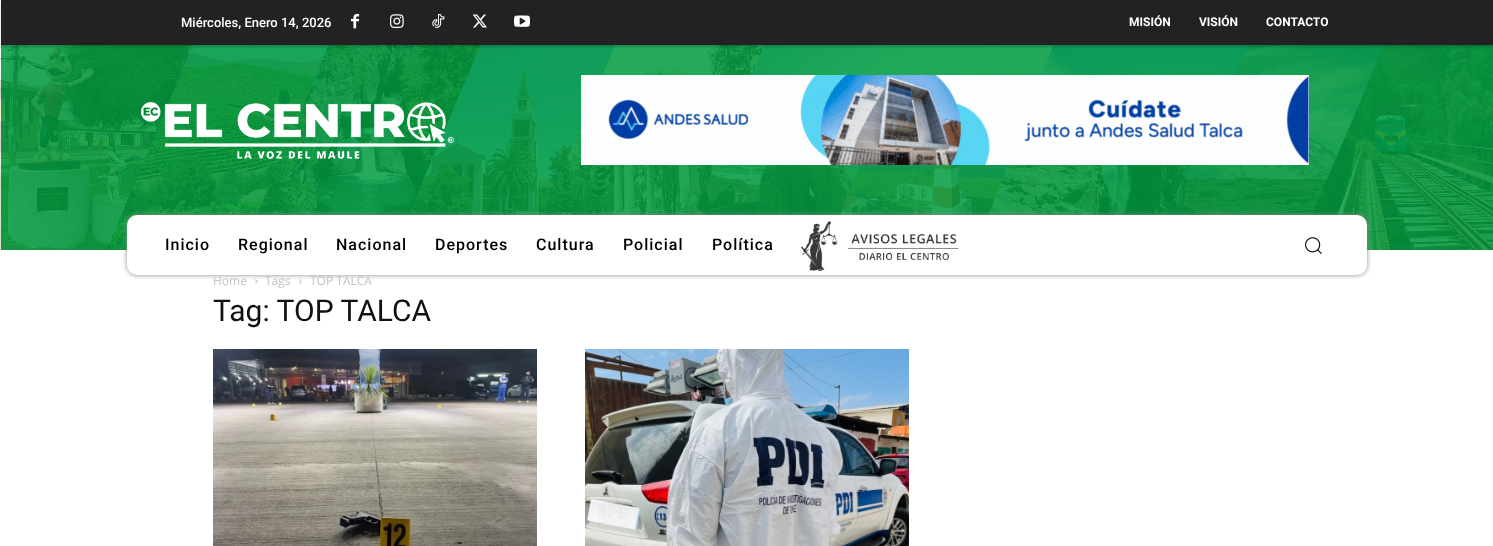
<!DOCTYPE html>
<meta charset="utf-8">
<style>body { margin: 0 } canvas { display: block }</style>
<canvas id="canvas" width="1493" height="546"></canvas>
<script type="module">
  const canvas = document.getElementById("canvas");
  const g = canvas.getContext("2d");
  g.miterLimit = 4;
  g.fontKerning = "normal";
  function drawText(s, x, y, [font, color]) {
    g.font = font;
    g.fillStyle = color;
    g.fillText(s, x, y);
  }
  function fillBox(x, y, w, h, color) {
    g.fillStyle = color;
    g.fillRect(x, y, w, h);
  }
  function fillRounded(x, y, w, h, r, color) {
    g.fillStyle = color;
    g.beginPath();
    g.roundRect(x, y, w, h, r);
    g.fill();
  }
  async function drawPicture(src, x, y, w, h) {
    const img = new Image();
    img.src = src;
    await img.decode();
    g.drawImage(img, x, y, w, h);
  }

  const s1 = ["500 13px Roboto", "#FFFFFF"];
  const s2 = ["bold 12px Roboto", "#FFFFFF"];
  const s3 = ["500 16px Roboto", "#000000"];
  const s4 = ["12px Open Sans", "#C3C3C3"];
  const s5 = ["30px Roboto", "#111111"];

  fillBox(0, 0, 1493, 546, "#FFFFFF");
  fillBox(1, 0, 1492, 45, "#222222");
  await drawPicture("pic1.png", 351, 13, 8, 16);
  await drawPicture("pic2.png", 390, 14, 14, 14);
  await drawPicture("pic3.png", 432, 14, 13, 14);
  await drawPicture("pic4.png", 472, 14, 15, 14);
  await drawPicture("pic5.png", 514, 15, 16, 12);
  await drawPicture("pic6.png", 0, 45, 1493, 205);
  g.save();
  g.beginPath();
  g.moveTo(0, 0);
  g.lineTo(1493, 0);
  g.lineTo(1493, 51);
  g.lineTo(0, 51);
  g.closePath();
  g.moveTo(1, 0);
  g.lineTo(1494, 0);
  g.lineTo(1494, 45);
  g.lineTo(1, 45);
  g.closePath();
  g.clip("evenodd");
  g.fillStyle = "rgba(0, 0, 0, 0.19)";
  g.filter = "blur(1px)";
  g.beginPath();
  g.rect(1, 2, 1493, 45);
  g.fill();
  g.filter = "none";
  g.restore();
  drawText("Miércoles, Enero 14, 2026", 181, 27, s1);
  drawText("MISIÓN", 1129, 26, s2);
  drawText("VISIÓN", 1199, 26, s2);
  drawText("CONTACTO", 1266, 26, s2);
  await drawPicture("pic7.png", 141, 102, 313, 57);
  await drawPicture("pic8.png", 581, 75, 728, 90);
  await drawPicture("pic11.png", 255, 279, 3, 5);
  await drawPicture("pic11.png", 299, 279, 3, 5);
  g.fillStyle = "#888888";
  g.filter = "blur(2.5px)";
  g.beginPath();
  g.roundRect(127, 215, 1240, 60, 10);
  g.fill();
  g.filter = "none";
  fillRounded(127, 215, 1240, 60, 10, "#FFFFFF");
  g.letterSpacing = "1px";
  drawText("Inicio", 165, 250, s3);
  drawText("Regional", 238, 250, s3);
  drawText("Nacional", 336, 250, s3);
  drawText("Deportes", 435, 250, s3);
  drawText("Cultura", 536, 250, s3);
  drawText("Policial", 623, 250, s3);
  drawText("Política", 712, 250, s3);
  await drawPicture("pic9.png", 801, 221, 158, 50);
  await drawPicture("pic10.png", 1305, 237, 17, 17);
  g.letterSpacing = "0px";
  drawText("Home", 213, 285, s4);
  drawText("Tags", 265, 285, s4);
  drawText("TOP TALCA", 310, 285, s4);
  drawText("Tag: TOP TALCA", 213, 321, s5);
  await drawPicture("pic12.png", 213, 349, 324, 197);
  await drawPicture("pic13.png", 585, 349, 324, 197);
</script>
